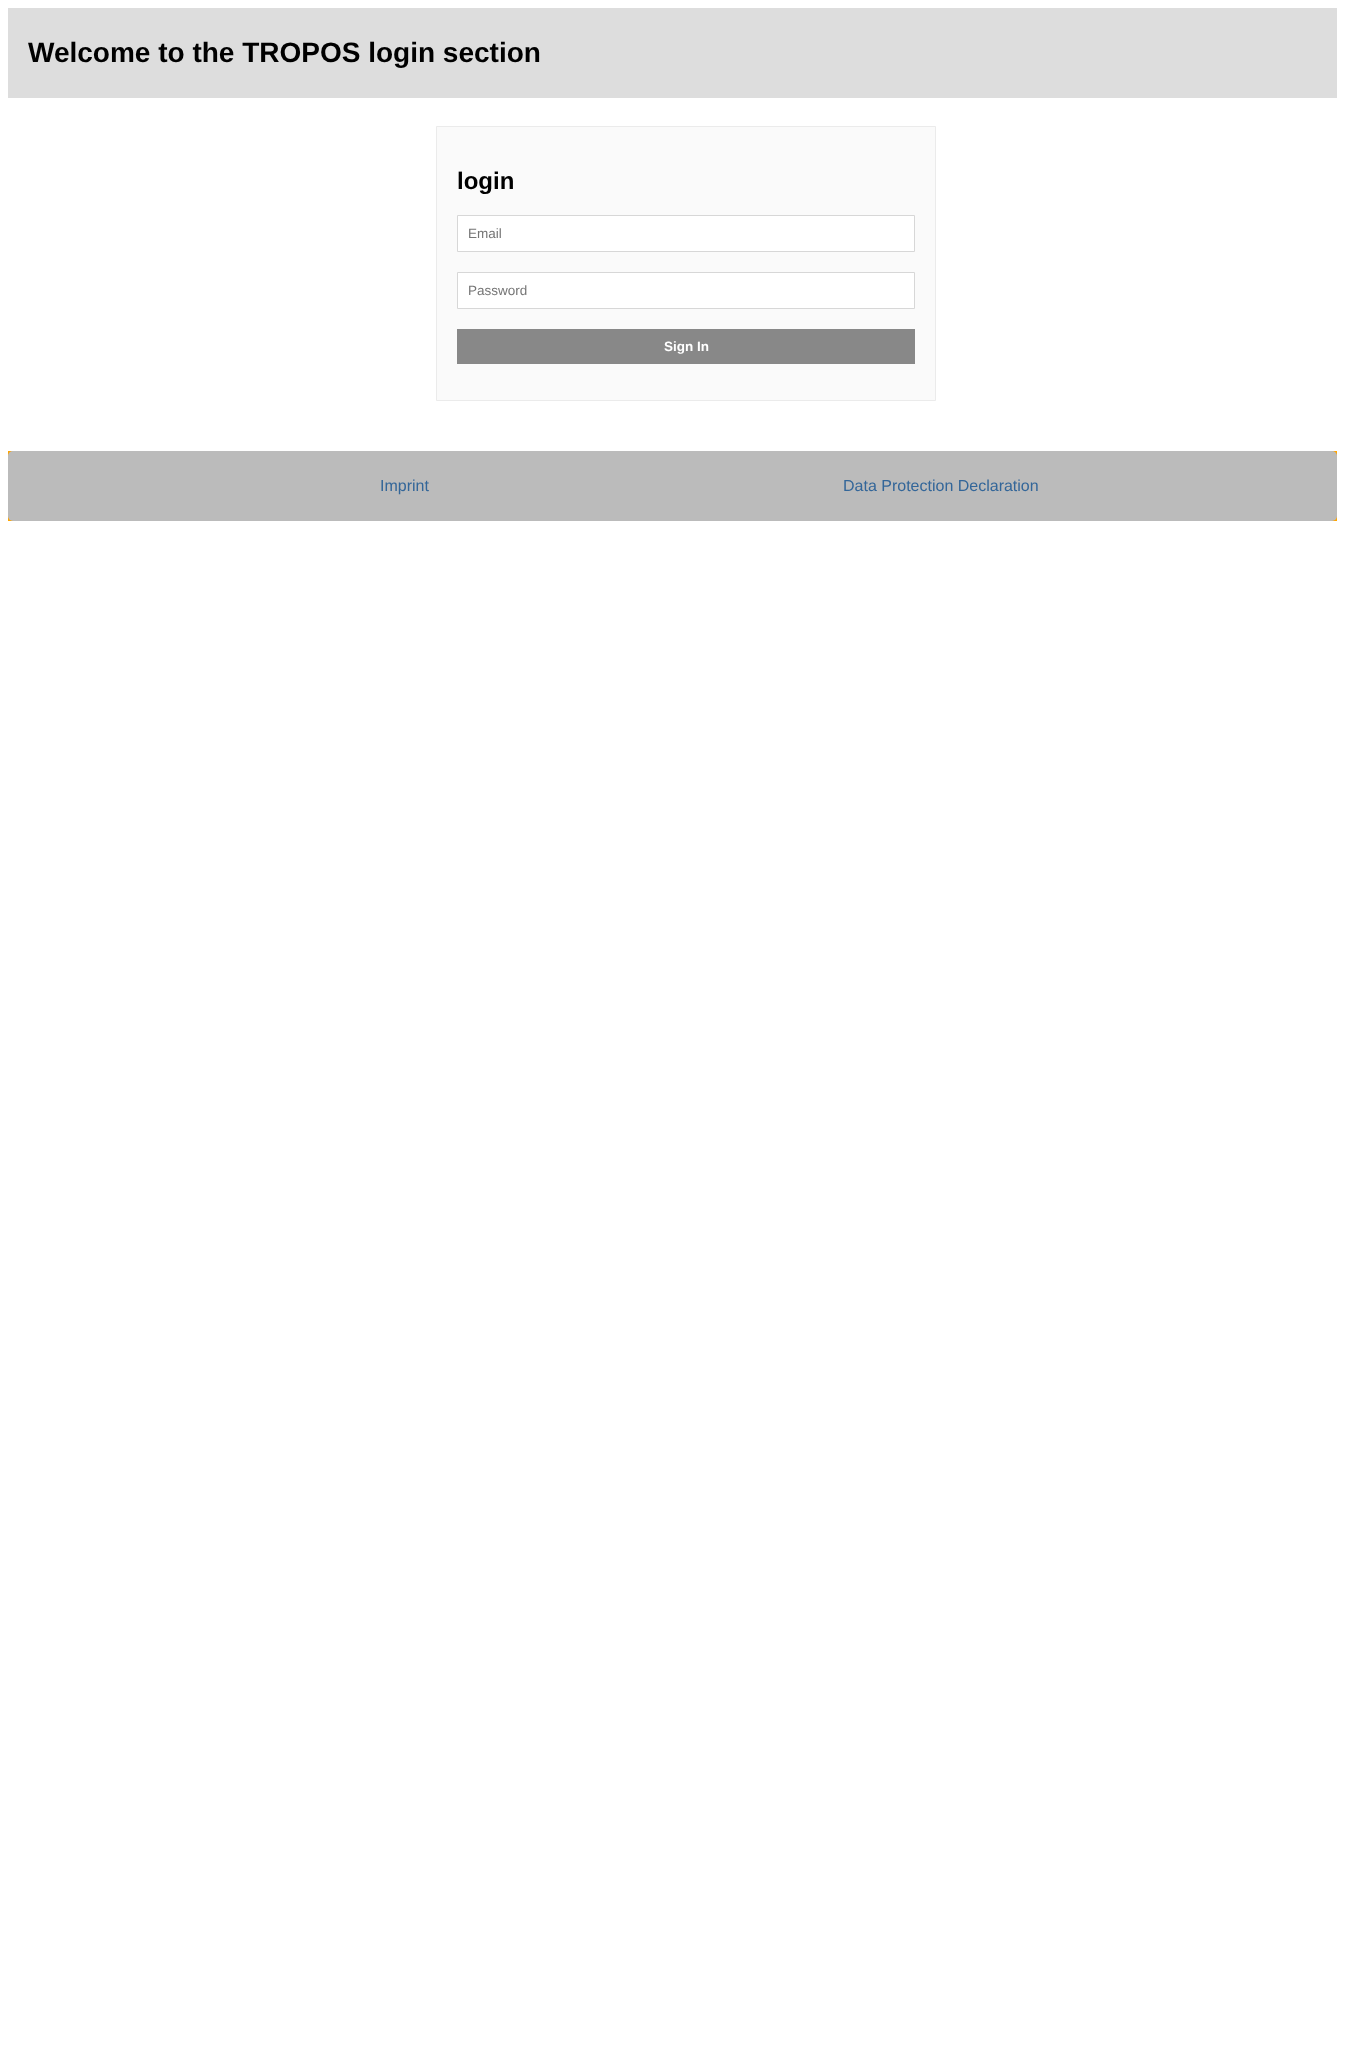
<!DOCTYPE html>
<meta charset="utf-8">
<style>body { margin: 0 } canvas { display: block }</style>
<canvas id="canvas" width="1372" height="2057"></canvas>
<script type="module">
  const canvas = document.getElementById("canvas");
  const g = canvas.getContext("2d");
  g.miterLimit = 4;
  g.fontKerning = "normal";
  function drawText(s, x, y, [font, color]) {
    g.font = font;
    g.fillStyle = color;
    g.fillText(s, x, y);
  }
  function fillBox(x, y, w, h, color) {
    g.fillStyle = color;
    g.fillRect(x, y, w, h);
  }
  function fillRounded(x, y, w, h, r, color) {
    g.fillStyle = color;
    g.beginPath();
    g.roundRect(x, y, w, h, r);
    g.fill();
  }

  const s1 = ["bold 28px Liberation Sans", "#000000"];
  const s2 = ["bold 24px Liberation Sans", "#000000"];
  const s3 = ["13.5px Liberation Sans", "#757575"];
  const s4 = ["bold 13.5px Liberation Sans", "#FFFFFF"];
  const s5 = ["16px Liberation Sans", "#336699"];

  fillBox(0, 0, 1372, 2057, "#FFFFFF");
  fillBox(8, 8, 1329, 90, "#DDDDDD");
  drawText("Welcome to the TROPOS login section", 28, 62, s1);
  g.fillStyle = "#FAFAFA";
  g.beginPath();
  g.rect(436.5, 126.5, 499, 274);
  g.fill();
  g.strokeStyle = "#EBEBEB";
  g.stroke();
  drawText("login", 457, 189, s2);
  g.fillStyle = "#FFFFFF";
  g.beginPath();
  g.rect(457.5, 215.5, 457, 36);
  g.fill();
  g.strokeStyle = "#D7D7D7";
  g.stroke();
  drawText("Email", 468, 238, s3);
  g.fillStyle = "#FFFFFF";
  g.beginPath();
  g.rect(457.5, 272.5, 457, 36);
  g.fill();
  g.stroke();
  drawText("Password", 468, 295, s3);
  fillBox(457, 329, 458, 35, "#888888");
  drawText("Sign In", 664, 351, s4);
  fillBox(8, 451, 1329, 70, "#FFA500");
  fillRounded(8, 451, 1329, 70, 5, "#BBBBBB");
  drawText("Imprint", 380, 491, s5);
  drawText("Data Protection Declaration", 843, 491, s5);
</script>
